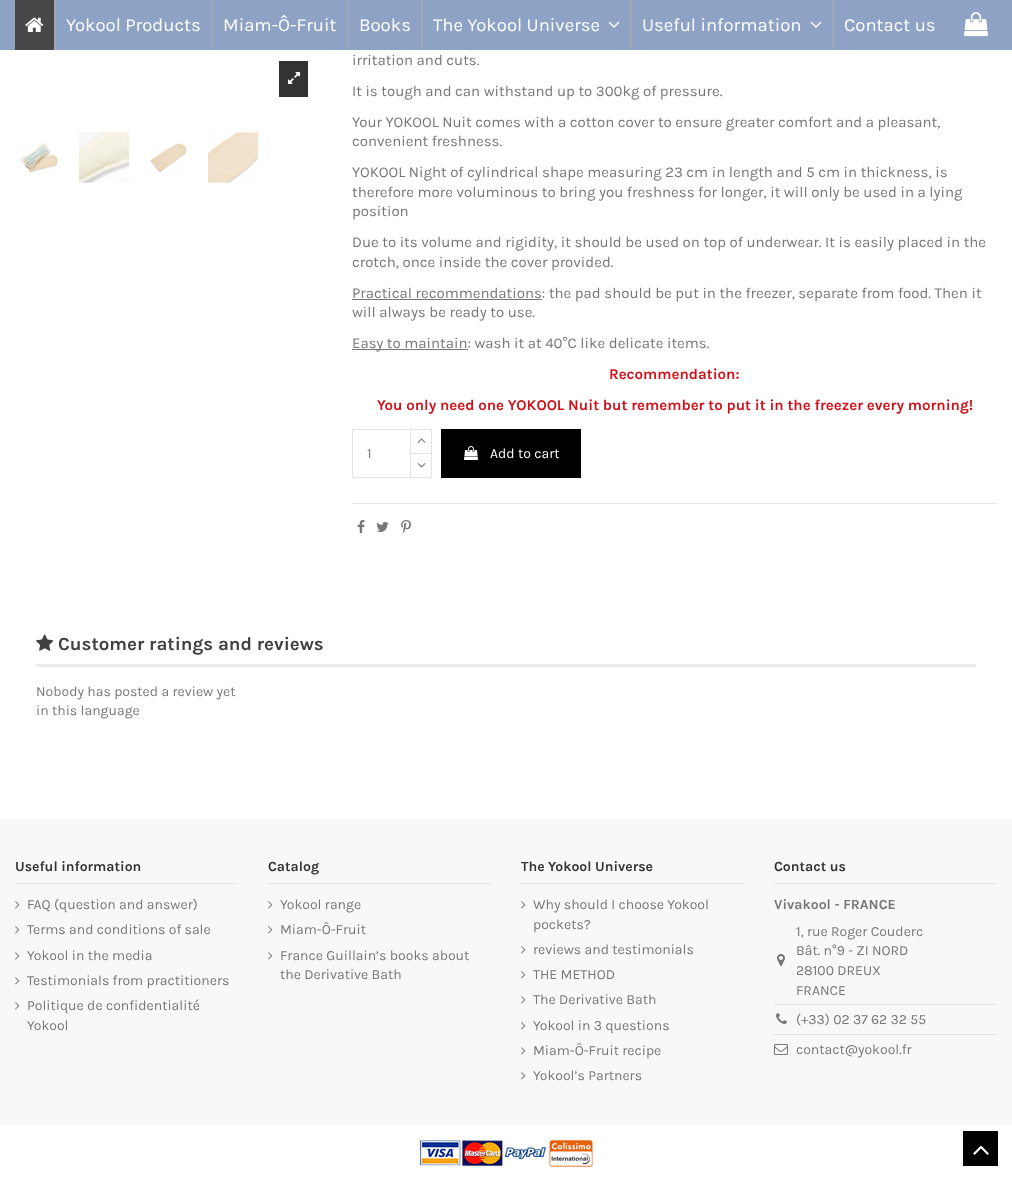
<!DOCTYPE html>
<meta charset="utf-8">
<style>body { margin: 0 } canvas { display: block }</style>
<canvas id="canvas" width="1012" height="1180"></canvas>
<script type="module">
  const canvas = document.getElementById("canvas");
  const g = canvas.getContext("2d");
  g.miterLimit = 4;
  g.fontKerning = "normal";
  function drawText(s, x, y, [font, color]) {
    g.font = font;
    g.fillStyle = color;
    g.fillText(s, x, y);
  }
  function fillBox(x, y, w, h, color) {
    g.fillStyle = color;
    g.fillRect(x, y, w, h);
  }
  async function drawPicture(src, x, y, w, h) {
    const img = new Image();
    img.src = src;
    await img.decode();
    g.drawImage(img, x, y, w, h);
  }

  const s1 = ["18.5px Karla", "#FFFFFF"];
  const s2 = ["15px Karla", "#777777"];
  const s3 = ["bold 15px Karla", "#D0121A"];
  const s4 = ["14px Karla", "#777777"];
  const s5 = ["14px Karla", "#FFFFFF"];
  const s6 = ["bold 18.7px Karla", "#414141"];
  const s7 = ["bold 14px Karla", "#333333"];
  const s8 = ["bold 14px Karla", "#777777"];

  fillBox(0, 0, 1012, 1180, "#FFFFFF");
  fillBox(0, 0, 1012, 50, "#8EA2C6");
  fillBox(15, 0, 39, 50, "#474747");
  await drawPicture("pic1.png", 25, 17, 19, 15);
  fillBox(54, 0, 2, 50, "#9EA7B6");
  drawText("Yokool Products", 66, 31, s1);
  fillBox(211, 0, 2, 50, "#9EA7B6");
  drawText("Miam-Ô-Fruit", 223, 31, s1);
  fillBox(347, 0, 2, 50, "#9EA7B6");
  drawText("Books", 359, 31, s1);
  fillBox(421, 0, 2, 50, "#9EA7B6");
  drawText("The Yokool Universe", 433, 31, s1);
  await drawPicture("pic2.png", 608, 21, 12, 7);
  fillBox(630, 0, 2, 50, "#9EA7B6");
  drawText("Useful information", 642, 31, s1);
  await drawPicture("pic2.png", 810, 21, 12, 7);
  fillBox(832, 0, 2, 50, "#9EA7B6");
  drawText("Contact us", 844, 31, s1);
  await drawPicture("pic3.png", 964, 12, 24, 25);
  fillBox(279, 61, 29, 36, "#333333");
  await drawPicture("pic4.png", 288, 72, 12, 12);
  await drawPicture("pic5.png", 19, 143, 39, 30);
  await drawPicture("pic6.png", 79, 132, 50, 51);
  await drawPicture("pic7.png", 150, 143, 37, 30);
  await drawPicture("pic8.png", 208, 132, 50, 51);
  drawText("irritation and cuts.", 352, 65, s2);
  drawText("It is tough and can withstand up to 300kg of pressure.", 352, 96, s2);
  drawText("Your YOKOOL Nuit comes with a cotton cover to ensure greater comfort and a pleasant,", 352, 127, s2);
  drawText("convenient freshness.", 352, 146, s2);
  drawText("YOKOOL Night of cylindrical shape measuring 23 cm in length and 5 cm in thickness, is", 352, 177, s2);
  drawText("therefore more voluminous to bring you freshness for longer, it will only be used in a lying", 352, 197, s2);
  drawText("position", 352, 216, s2);
  drawText("Due to its volume and rigidity, it should be used on top of underwear. It is easily placed in the", 352, 247, s2);
  drawText("crotch, once inside the cover provided.", 352, 267, s2);
  fillBox(352, 299, 190, 1, "#777777");
  drawText("Practical recommendations: the pad should be put in the freezer, separate from food. Then it", 352, 298, s2);
  drawText("will always be ready to use.", 352, 317, s2);
  fillBox(352, 349, 116, 1, "#777777");
  drawText("Easy to maintain: wash it at 40°C like delicate items.", 352, 348, s2);
  drawText("Recommendation:", 609, 379, s3);
  drawText("You only need one YOKOOL Nuit but remember to put it in the freezer every morning!", 377, 410, s3);
  g.strokeStyle = "#E3E3E3";
  g.strokeRect(352.5, 429.5, 58, 48);
  drawText("1", 367, 458, s4);
  g.strokeRect(410.5, 429.5, 21, 24);
  await drawPicture("pic9.png", 417, 438, 9, 5);
  fillBox(410, 454, 1, 23, "#FFFFFF");
  g.fillStyle = "#E3E3E3";
  g.beginPath();
  g.moveTo(432, 454);
  g.lineTo(432, 478);
  g.lineTo(431, 477);
  g.lineTo(431, 455);
  g.closePath();
  g.fill();
  fillBox(410, 477, 22, 1, "#E3E3E3");
  g.beginPath();
  g.moveTo(410, 478);
  g.lineTo(410, 454);
  g.lineTo(411, 455);
  g.lineTo(411, 477);
  g.closePath();
  g.fill();
  await drawPicture("pic10.png", 417, 463, 9, 5);
  fillBox(441, 429, 140, 49, "#000000");
  await drawPicture("pic11.png", 464, 446, 14, 14);
  drawText("Add to cart", 490, 458, s5);
  fillBox(352, 503, 645, 1, "#E7E7E7");
  await drawPicture("pic12.png", 357, 520, 8, 13);
  await drawPicture("pic13.png", 376, 522, 13, 10);
  await drawPicture("pic14.png", 401, 520, 10, 13);
  fillBox(36, 664, 940, 3, "#EBEBEB");
  await drawPicture("pic15.png", 36, 634, 18, 17);
  drawText("Customer ratings and reviews", 58, 650, s6);
  drawText("Nobody has posted a review yet", 36, 696, s4);
  drawText("in this language", 36, 715, s4);
  fillBox(0, 819, 1012, 306, "#F8F8F8");
  fillBox(15, 883, 223, 1, "#E3E3E3");
  drawText("Useful information", 15, 871, s7);
  await drawPicture("pic16.png", 15, 901, 5, 8);
  drawText("FAQ (question and answer)", 27, 909, s4);
  await drawPicture("pic16.png", 15, 926, 5, 8);
  drawText("Terms and conditions of sale", 27, 934, s4);
  await drawPicture("pic16.png", 15, 952, 5, 8);
  drawText("Yokool in the media", 27, 960, s4);
  await drawPicture("pic16.png", 15, 977, 5, 8);
  drawText("Testimonials from practitioners", 27, 985, s4);
  await drawPicture("pic16.png", 15, 1002, 5, 8);
  drawText("Politique de confidentialité", 27, 1010, s4);
  drawText("Yokool", 27, 1030, s4);
  fillBox(268, 883, 223, 1, "#E3E3E3");
  drawText("Catalog", 268, 871, s7);
  await drawPicture("pic16.png", 268, 901, 5, 8);
  drawText("Yokool range", 280, 909, s4);
  await drawPicture("pic16.png", 268, 926, 5, 8);
  drawText("Miam-Ô-Fruit", 280, 934, s4);
  await drawPicture("pic16.png", 268, 952, 5, 8);
  drawText("France Guillain’s books about", 280, 960, s4);
  drawText("the Derivative Bath", 280, 979, s4);
  fillBox(521, 883, 223, 1, "#E3E3E3");
  drawText("The Yokool Universe", 521, 871, s7);
  await drawPicture("pic16.png", 521, 901, 5, 8);
  drawText("Why should I choose Yokool", 533, 909, s4);
  drawText("pockets?", 533, 929, s4);
  await drawPicture("pic16.png", 521, 946, 5, 8);
  drawText("reviews and testimonials", 533, 954, s4);
  await drawPicture("pic16.png", 521, 971, 5, 8);
  drawText("THE METHOD", 533, 979, s4);
  await drawPicture("pic16.png", 521, 996, 5, 8);
  drawText("The Derivative Bath", 533, 1004, s4);
  await drawPicture("pic16.png", 521, 1022, 5, 8);
  drawText("Yokool in 3 questions", 533, 1030, s4);
  await drawPicture("pic16.png", 521, 1047, 5, 8);
  drawText("Miam-Ô-Fruit recipe", 533, 1055, s4);
  await drawPicture("pic16.png", 521, 1072, 5, 8);
  drawText("Yokool’s Partners", 533, 1080, s4);
  fillBox(774, 883, 223, 1, "#E3E3E3");
  drawText("Contact us", 774, 871, s7);
  drawText("Vivakool - FRANCE", 774, 909, s8);
  await drawPicture("pic17.png", 777, 954, 8, 12);
  drawText("1, rue Roger Couderc", 796, 936, s4);
  drawText("Bât. n°9 - ZI NORD", 796, 955, s4);
  drawText("28100 DREUX", 796, 975, s4);
  drawText("FRANCE", 796, 995, s4);
  fillBox(774, 1004, 223, 1, "#E2E2E2");
  await drawPicture("pic18.png", 776, 1013, 11, 11);
  drawText("(+33) 02 37 62 32 55", 796, 1024, s4);
  fillBox(774, 1034, 223, 1, "#E2E2E2");
  await drawPicture("pic19.png", 774, 1044, 14, 11);
  drawText("contact@yokool.fr", 796, 1054, s4);
  await drawPicture("pic20.png", 420, 1140, 173, 27);
  fillBox(963, 1131, 35, 35, "#000000");
  await drawPicture("pic21.png", 973, 1145, 16, 10);
</script>
